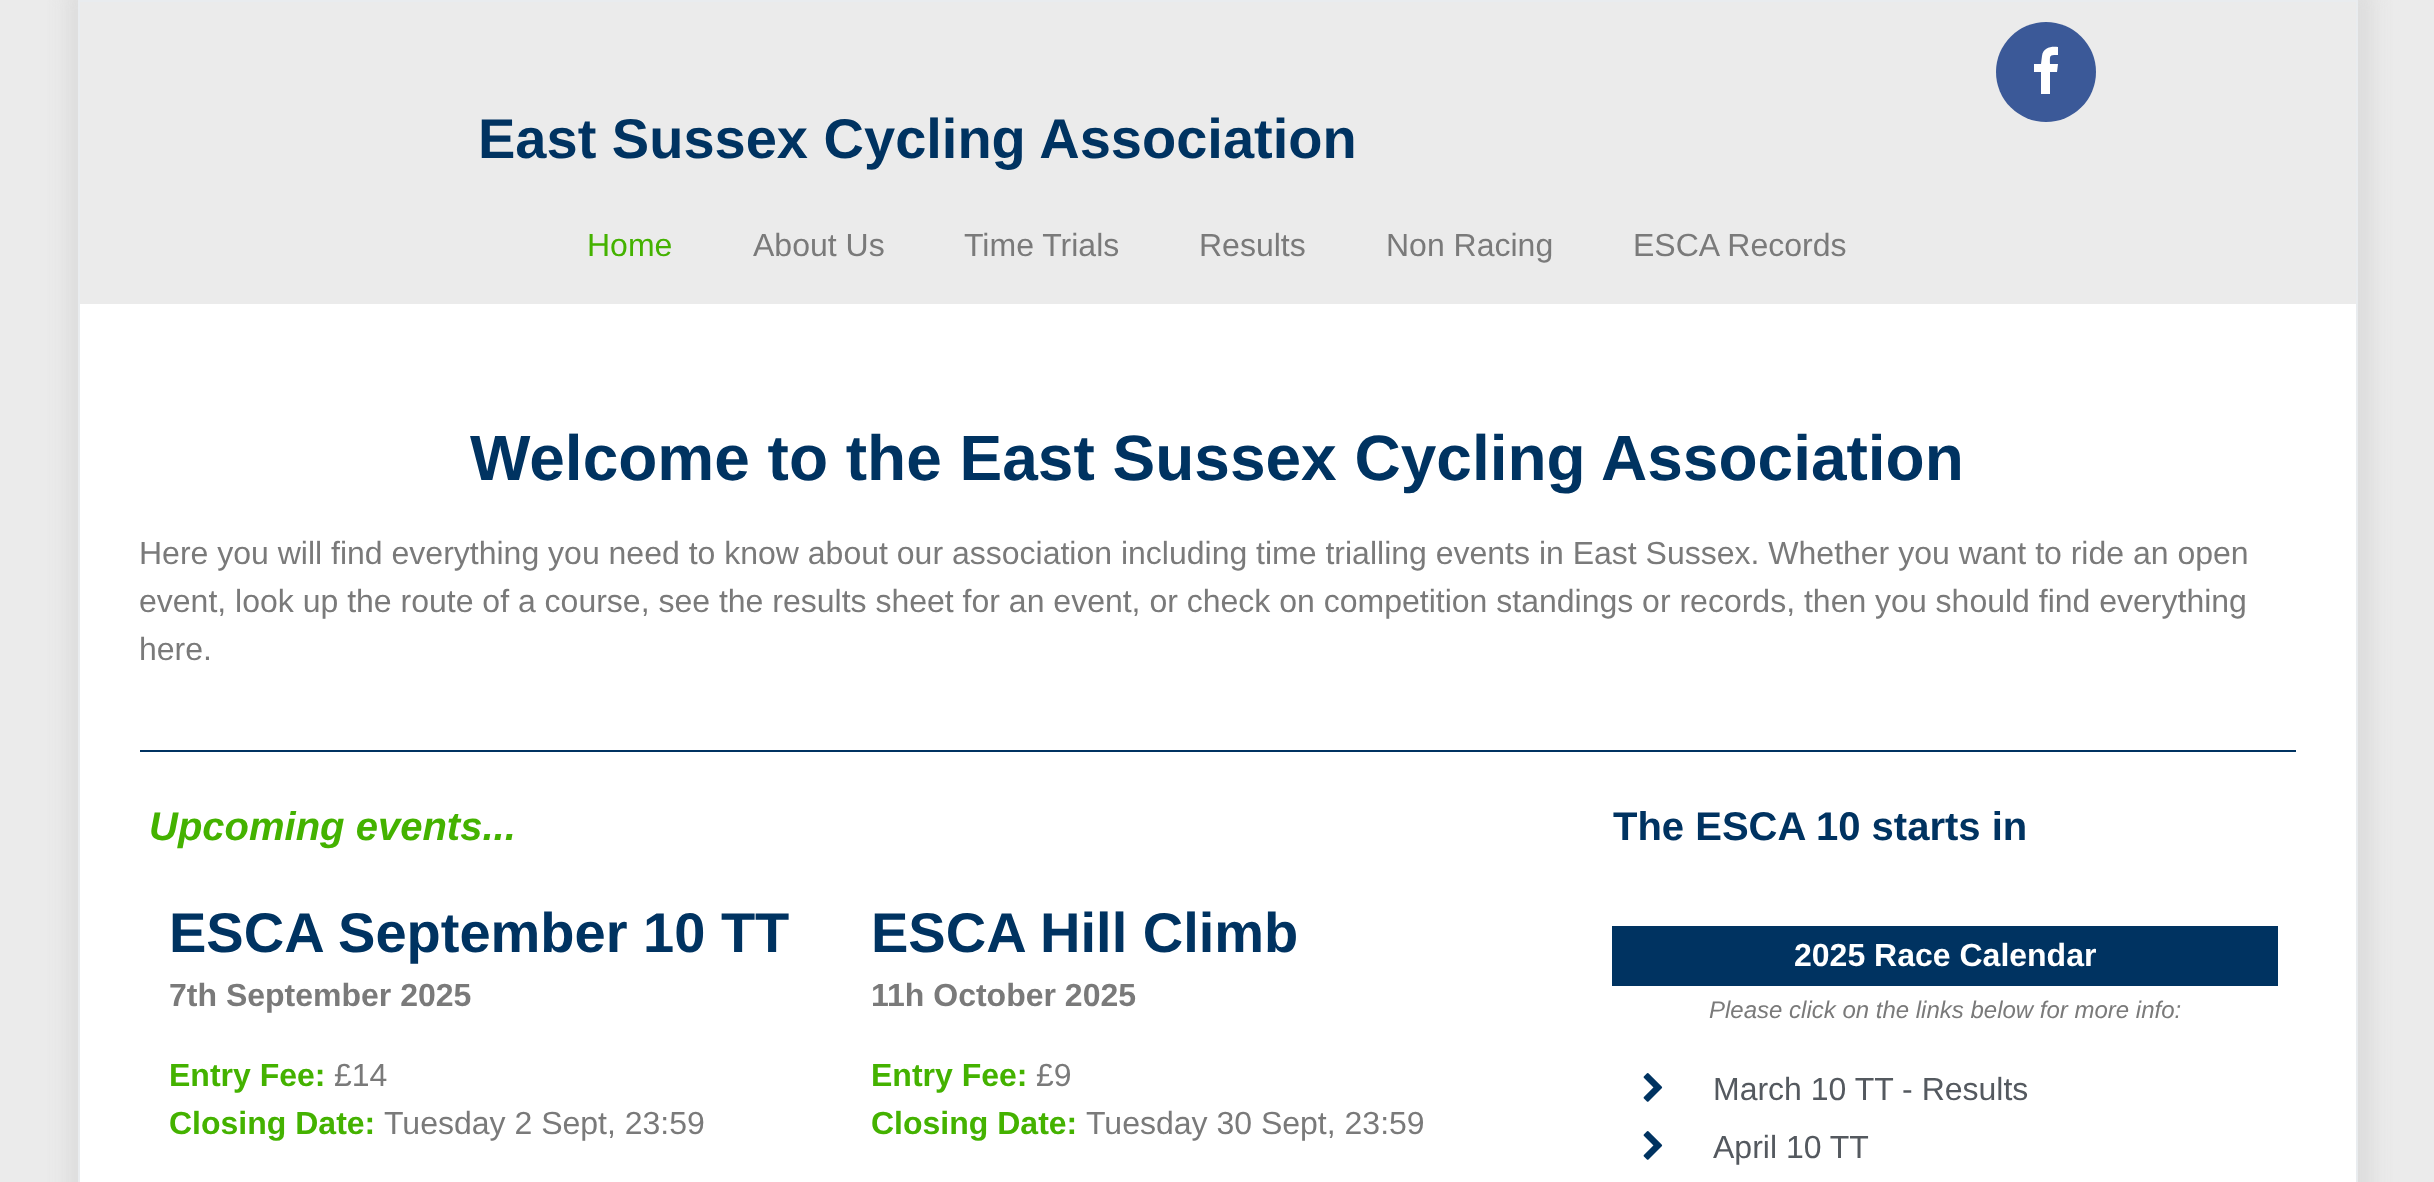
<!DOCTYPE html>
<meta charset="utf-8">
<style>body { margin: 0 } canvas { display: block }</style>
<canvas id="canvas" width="2434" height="1182"></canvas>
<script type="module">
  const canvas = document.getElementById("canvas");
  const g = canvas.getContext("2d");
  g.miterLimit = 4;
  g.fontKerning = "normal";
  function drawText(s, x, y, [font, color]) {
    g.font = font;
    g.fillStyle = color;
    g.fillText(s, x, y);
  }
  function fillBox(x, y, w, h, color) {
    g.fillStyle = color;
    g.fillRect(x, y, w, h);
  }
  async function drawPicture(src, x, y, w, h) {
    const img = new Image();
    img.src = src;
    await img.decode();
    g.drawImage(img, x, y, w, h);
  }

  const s1 = ["bold 56px Liberation Sans", "#003361"];
  const s2 = ["32px Liberation Sans", "#44B200"];
  const s3 = ["32px Liberation Sans", "#7A7A7A"];
  const s4 = ["bold 64px Liberation Sans", "#003361"];
  const s5 = ["italic bold 40px Liberation Sans", "#44B200"];
  const s6 = ["bold 32px Liberation Sans", "#7A7A7A"];
  const s7 = ["bold 32px Liberation Sans", "#44B200"];
  const s8 = ["bold 40px Liberation Sans", "#003361"];
  const s9 = ["bold 32px Liberation Sans", "#FFFFFF"];
  const s10 = ["italic 24px Liberation Sans", "#7A7A7A"];
  const s11 = ["32px Liberation Sans", "#54595F"];

  fillBox(0, 0, 2434, 1182, "#EBEBEB");
  g.save();
  g.beginPath();
  g.moveTo(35, 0);
  g.lineTo(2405, 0);
  g.lineTo(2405, 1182);
  g.lineTo(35, 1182);
  g.closePath();
  g.moveTo(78, 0);
  g.lineTo(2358, 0);
  g.lineTo(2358, 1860);
  g.lineTo(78, 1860);
  g.closePath();
  g.clip("evenodd");
  g.fillStyle = "#DDDDDD";
  g.filter = "blur(10px)";
  g.beginPath();
  g.rect(66, -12, 2308, 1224);
  g.fill();
  g.filter = "none";
  g.restore();
  g.strokeStyle = "#E9ECEF";
  g.lineWidth = 2;
  g.strokeRect(79, 1, 2278, 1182);
  g.fillStyle = "#3B5998";
  g.beginPath();
  g.arc(2046, 72, 50, 0, Math.PI * 2);
  g.fill();
  g.fillStyle = "#FFFFFF";
  g.beginPath();
  g.moveTo(2058, 47);
  g.bezierCurveTo(2052, 46, 2043, 47, 2042, 56);
  g.lineTo(2041, 64);
  g.lineTo(2034, 64);
  g.lineTo(2034, 72);
  g.lineTo(2041, 72);
  g.lineTo(2041, 94);
  g.lineTo(2050, 94);
  g.lineTo(2050, 72);
  g.lineTo(2057, 72);
  g.lineTo(2058, 64);
  g.lineTo(2050, 64);
  g.bezierCurveTo(2050, 55, 2049, 55, 2058, 55);
  g.closePath();
  g.fill();
  drawText("East Sussex Cycling Association", 478, 158, s1);
  drawText("Home", 587, 256, s2);
  drawText("About Us", 753, 256, s3);
  drawText("Time Trials", 964, 256, s3);
  drawText("Results", 1199, 256, s3);
  drawText("Non Racing", 1386, 256, s3);
  drawText("ESCA Records", 1633, 256, s3);
  fillBox(80, 304, 2276, 878, "#FFFFFF");
  drawText("Welcome to the East Sussex Cycling Association", 470, 480, s4);
  drawText("Here you will find everything you need to know about our association including time trialling events in East Sussex. Whether you want to ride an open", 139, 564, s3);
  drawText("event, look up the route of a course, see the results sheet for an event, or check on competition standings or records, then you should find everything", 139, 612, s3);
  drawText("here.", 139, 660, s3);
  fillBox(140, 750, 2156, 2, "#003361");
  drawText("Upcoming events...", 149, 840, s5);
  drawText("ESCA September 10 TT", 169, 952, s1);
  drawText("7th September 2025", 169, 1006, s6);
  drawText("Entry Fee:", 169, 1086, s7);
  drawText("£14", 334, 1086, s3);
  drawText("Closing Date:", 169, 1134, s7);
  drawText("Tuesday 2 Sept, 23:59", 384, 1134, s3);
  drawText("ESCA Hill Climb", 871, 952, s1);
  drawText("11h October 2025", 871, 1006, s6);
  drawText("Entry Fee:", 871, 1086, s7);
  drawText("£9", 1036, 1086, s3);
  drawText("Closing Date:", 871, 1134, s7);
  drawText("Tuesday 30 Sept, 23:59", 1086, 1134, s3);
  drawText("The ESCA 10 starts in", 1613, 840, s8);
  fillBox(1612, 926, 666, 60, "#003361");
  drawText("2025 Race Calendar", 1794, 966, s9);
  drawText("Please click on the links below for more info:", 1709, 1018, s10);
  await drawPicture("pic1.png", 1643, 1073, 20, 29);
  drawText("March 10 TT - Results", 1713, 1100, s11);
  await drawPicture("pic1.png", 1643, 1131, 20, 29);
  drawText("April 10 TT", 1713, 1158, s11);
</script>
